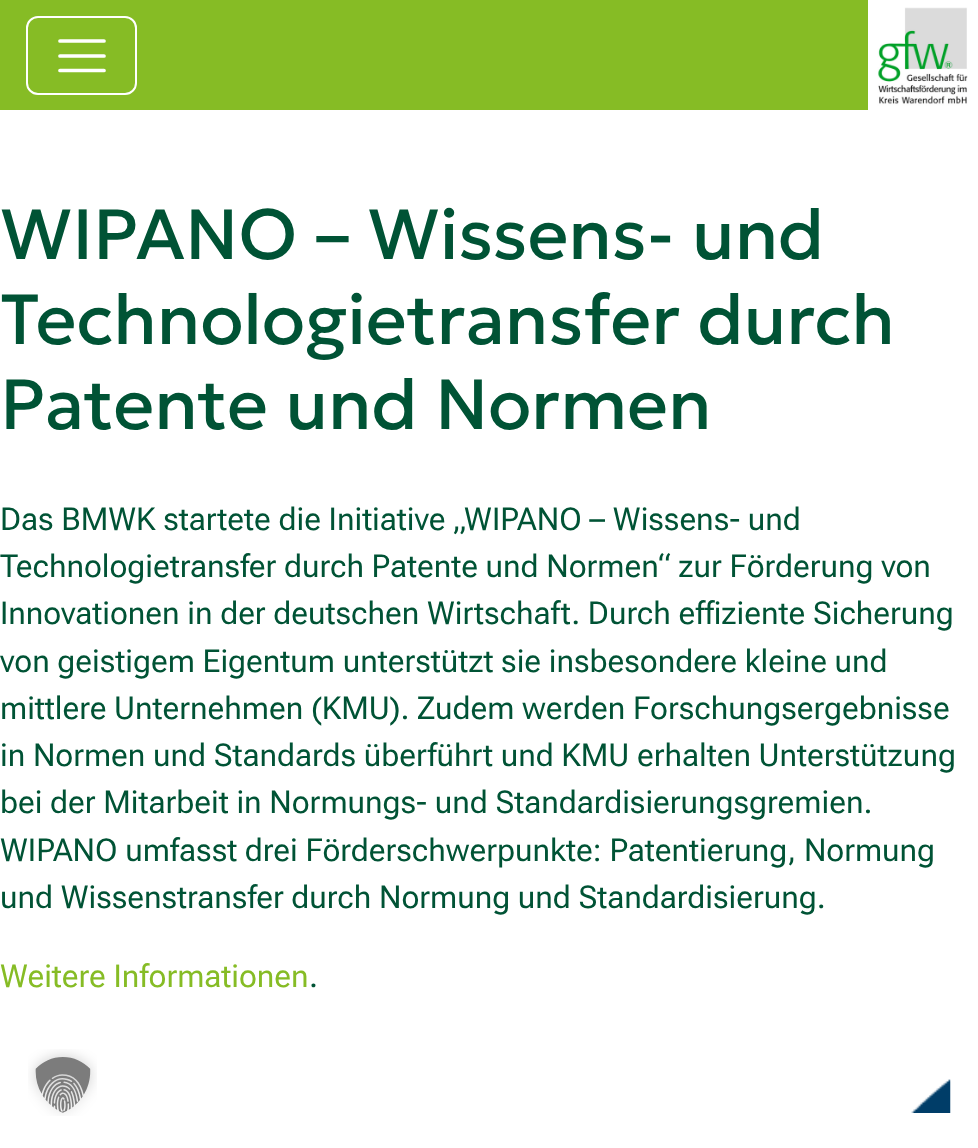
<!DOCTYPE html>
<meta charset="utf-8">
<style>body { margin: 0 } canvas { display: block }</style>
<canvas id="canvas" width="978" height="1148"></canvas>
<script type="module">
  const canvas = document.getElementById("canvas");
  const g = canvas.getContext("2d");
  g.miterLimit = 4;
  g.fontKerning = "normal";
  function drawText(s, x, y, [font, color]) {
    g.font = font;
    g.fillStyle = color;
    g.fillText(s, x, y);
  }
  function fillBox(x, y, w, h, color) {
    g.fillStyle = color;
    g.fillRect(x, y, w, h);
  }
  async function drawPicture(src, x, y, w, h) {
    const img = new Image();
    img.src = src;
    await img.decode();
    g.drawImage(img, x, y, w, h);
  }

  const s1 = ["100 70.9px Geologica", "#005335"];
  const s2 = ["31.5px Roboto Flex", "#005335"];
  const s3 = ["31.5px Roboto Flex", "#86BC25"];

  fillBox(0, 0, 978, 1148, "#FFFFFF");
  fillBox(0, 0, 868, 110, "#86BC25");
  g.beginPath();
  g.roundRect(27, 17, 109, 77, 11);
  g.strokeStyle = "#FFFFFF";
  g.lineWidth = 2;
  g.stroke();
  g.beginPath();
  g.moveTo(60, 41);
  g.lineTo(104, 41);
  g.moveTo(60, 56);
  g.lineTo(104, 56);
  g.moveTo(60, 70.5);
  g.lineTo(104, 70.5);
  g.lineWidth = 3.7;
  g.lineCap = "round";
  g.stroke();
  await drawPicture("pic1.png", 868, 0, 110, 110);
  drawText("WIPANO – Wissens- und", 0, 259, s1);
  drawText("Technologietransfer durch", 0, 344, s1);
  drawText("Patente und Normen", 0, 429, s1);
  drawText("Das BMWK startete die Initiative „WIPANO – Wissens- und", 0, 530, s2);
  drawText("Technologietransfer durch Patente und Normen“ zur Förderung von", 0, 577, s2);
  drawText("Innovationen in der deutschen Wirtschaft. Durch effiziente Sicherung", 0, 624, s2);
  drawText("von geistigem Eigentum unterstützt sie insbesondere kleine und", 0, 672, s2);
  drawText("mittlere Unternehmen (KMU). Zudem werden Forschungsergebnisse", 0, 719, s2);
  drawText("in Normen und Standards überführt und KMU erhalten Unterstützung", 0, 766, s2);
  drawText("bei der Mitarbeit in Normungs- und Standardisierungsgremien.", 0, 813, s2);
  drawText("WIPANO umfasst drei Förderschwerpunkte: Patentierung, Normung", 0, 861, s2);
  drawText("und Wissenstransfer durch Normung und Standardisierung.", 0, 908, s2);
  drawText("Weitere Informationen", 0, 987, s3);
  drawText(".", 309, 987, s2);
  await drawPicture("pic2.png", 28, 1049, 69, 67);
  await drawPicture("pic3.png", 911, 1079, 40, 34);
</script>
